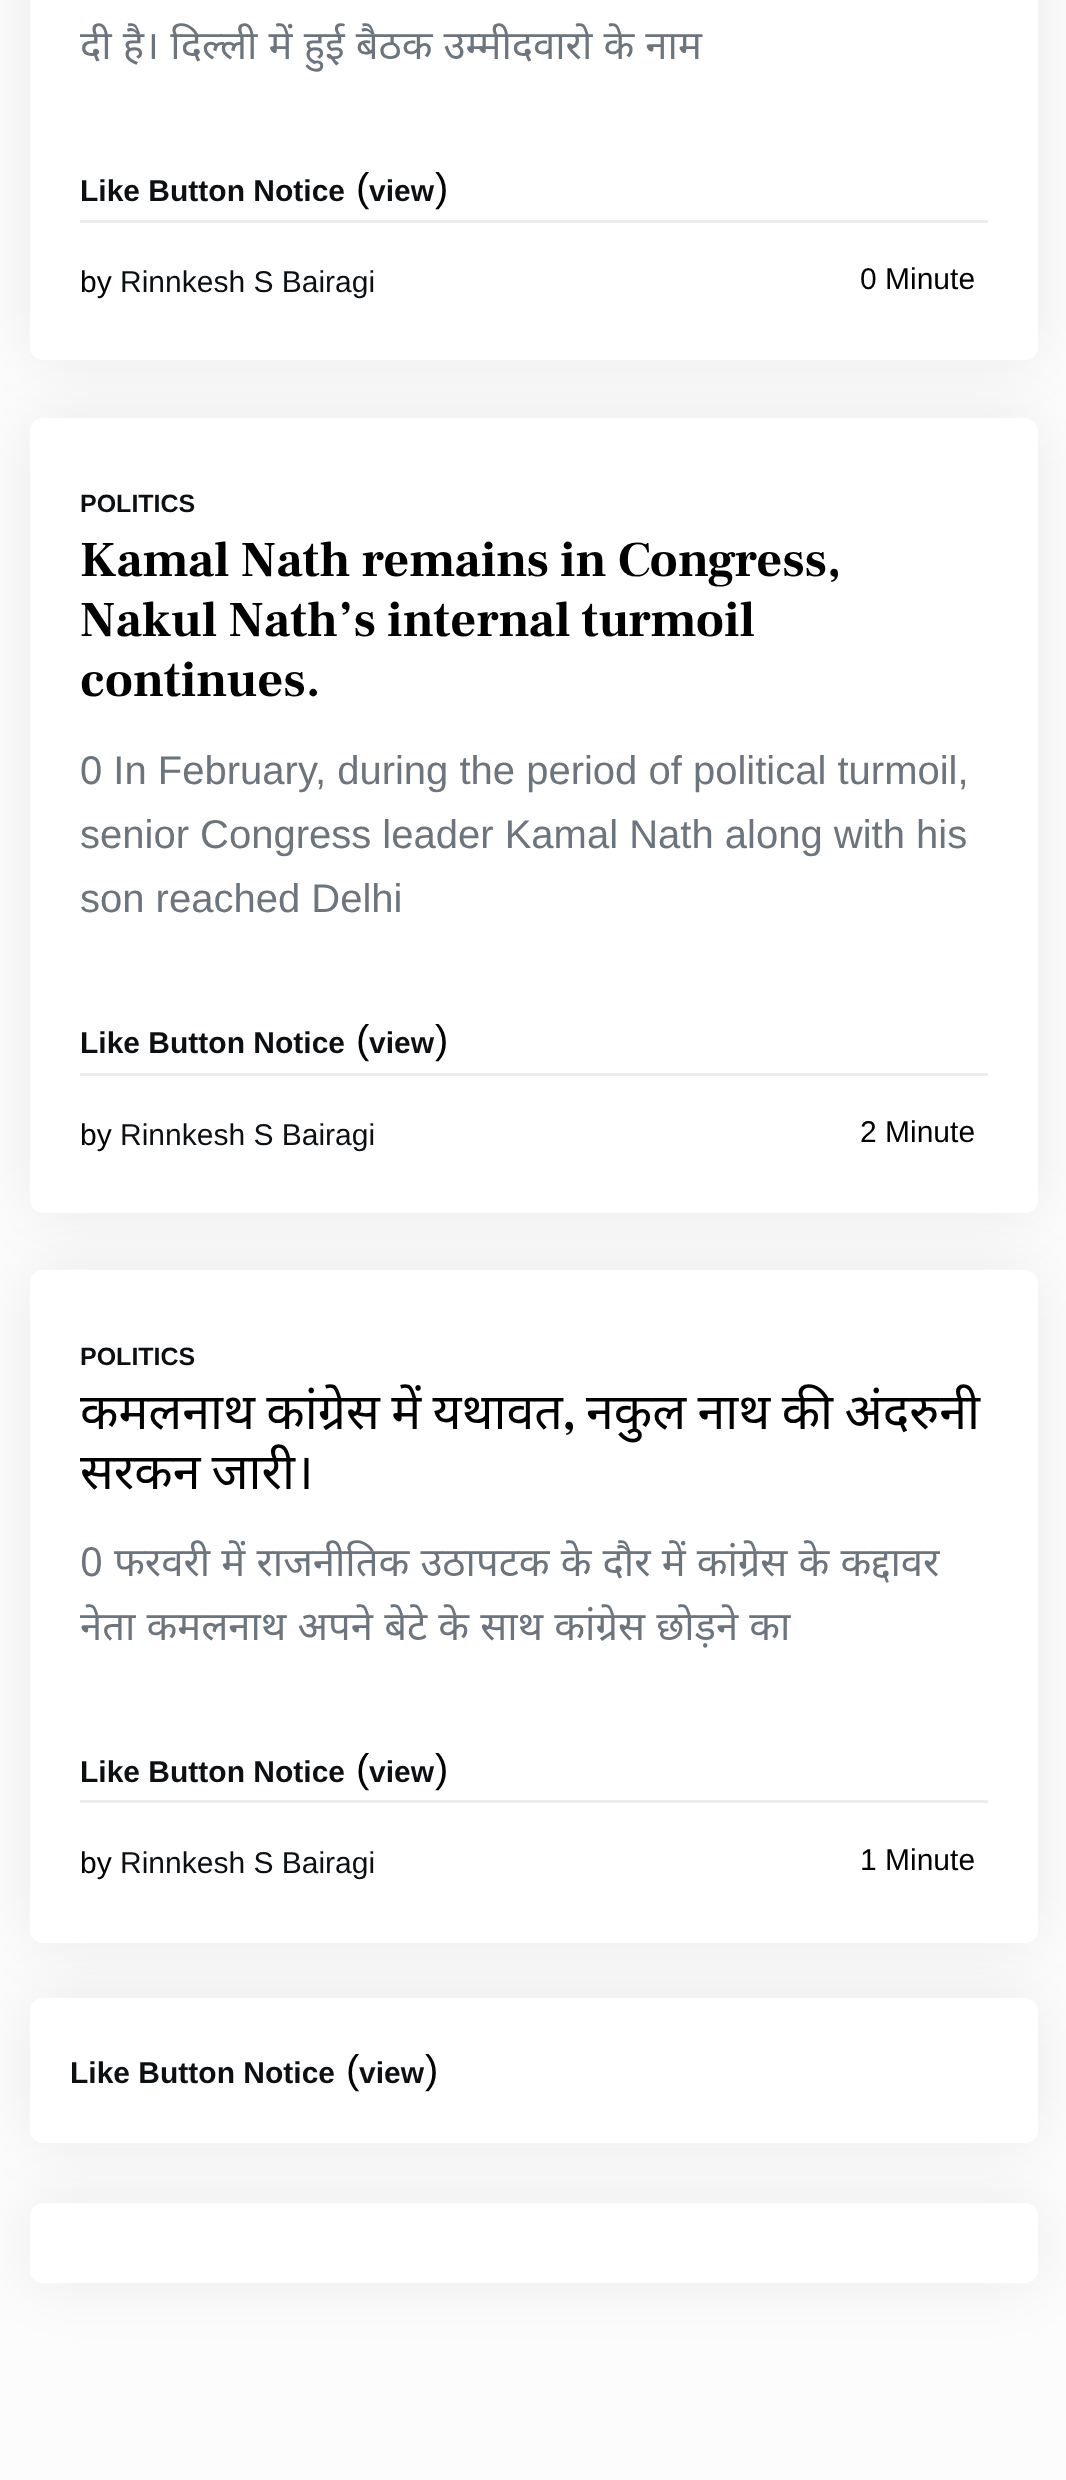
<!DOCTYPE html>
<meta charset="utf-8">
<style>body { margin: 0 } canvas { display: block }</style>
<canvas id="canvas" width="1066" height="2480"></canvas>
<script type="module">
  const canvas = document.getElementById("canvas");
  const g = canvas.getContext("2d");
  g.miterLimit = 4;
  g.fontKerning = "normal";
  function drawText(s, x, y, [font, color]) {
    g.font = font;
    g.fillStyle = color;
    g.fillText(s, x, y);
  }
  function fillBox(x, y, w, h, color) {
    g.fillStyle = color;
    g.fillRect(x, y, w, h);
  }
  function fillRounded(x, y, w, h, r, color) {
    g.fillStyle = color;
    g.beginPath();
    g.roundRect(x, y, w, h, r);
    g.fill();
  }

  const s1 = ["40px Noto Sans", "#6C757D"];
  const s2 = ["bold 30px Liberation Sans", "#0D1013"];
  const s3 = ["40px Liberation Sans", "#000000"];
  const s4 = ["30px Liberation Sans", "#000000"];
  const s5 = ["30px Liberation Sans", "#0D1013"];
  const s6 = ["bold 25px Liberation Sans", "#0D1013"];
  const s7 = ["bold 50px Frank Ruhl Libre", "#000000"];
  const s8 = ["40px Liberation Sans", "#6C757D"];
  const s9 = ["50px Noto Sans", "#000000"];

  fillBox(0, 0, 1066, 2480, "#FCFCFC");
  g.fillStyle = "rgba(0, 0, 0, 0.07)";
  g.filter = "blur(31px)";
  g.beginPath();
  g.roundRect(30, -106, 1008, 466, 13);
  g.fill();
  g.filter = "none";
  fillRounded(30, -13, 1008, 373, 13, "#FFFFFF");
  g.wordSpacing = "0.75px";
  drawText("दी है। दिल्ली में हुई बैठक उम्मीदवारो के नाम", 80, 59, s1);
  g.wordSpacing = "0px";
  drawText("Like Button Notice", 80, 201, s2);
  drawText("(", 356, 201, s3);
  drawText(")", 435, 201, s3);
  drawText("view", 369, 201, s2);
  fillBox(80, 220, 908, 3, "#EDEDED");
  drawText("by", 80, 292, s4);
  drawText("Rinnkesh S Bairagi", 120, 292, s5);
  drawText("0 Minute", 860, 289, s4);
  g.fillStyle = "rgba(0, 0, 0, 0.07)";
  g.filter = "blur(31px)";
  g.beginPath();
  g.roundRect(30, 418, 1008, 795, 13);
  g.fill();
  g.filter = "none";
  fillRounded(30, 418, 1008, 795, 13, "#FFFFFF");
  drawText("POLITICS", 80, 512, s6);
  drawText("Kamal Nath remains in Congress,", 80, 576, s7);
  drawText("Nakul Nath’s internal turmoil", 80, 636, s7);
  drawText("continues.", 80, 696, s7);
  drawText("0 In February, during the period of political turmoil,", 80, 784, s8);
  drawText("senior Congress leader Kamal Nath along with his", 80, 848, s8);
  drawText("son reached Delhi", 80, 912, s8);
  drawText("Like Button Notice", 80, 1053, s2);
  drawText("(", 356, 1053, s3);
  drawText(")", 435, 1053, s3);
  drawText("view", 369, 1053, s2);
  fillBox(80, 1073, 908, 3, "#EDEDED");
  drawText("by", 80, 1145, s4);
  drawText("Rinnkesh S Bairagi", 120, 1145, s5);
  drawText("2 Minute", 860, 1142, s4);
  g.fillStyle = "rgba(0, 0, 0, 0.07)";
  g.filter = "blur(31px)";
  g.beginPath();
  g.roundRect(30, 1270, 1008, 673, 13);
  g.fill();
  g.filter = "none";
  fillRounded(30, 1270, 1008, 673, 13, "#FFFFFF");
  drawText("POLITICS", 80, 1365, s6);
  g.wordSpacing = "-1.5px";
  drawText("कमलनाथ कांग्रेस में यथावत", 80, 1429, s9);
  g.wordSpacing = "0px";
  drawText(",", 562, 1429, s7);
  g.wordSpacing = "-1.5px";
  drawText("नकुल नाथ की अंदरुनी", 586, 1429, s9);
  g.wordSpacing = "-2px";
  drawText("सरकन जारी।", 80, 1489, s9);
  g.wordSpacing = "0.75px";
  drawText("0 फरवरी में राजनीतिक उठापटक के दौर में कांग्रेस के कद्दावर", 80, 1576, s1);
  drawText("नेता कमलनाथ अपने बेटे के साथ कांग्रेस छोड़ने का", 80, 1640, s1);
  g.wordSpacing = "0px";
  drawText("Like Button Notice", 80, 1782, s2);
  drawText("(", 356, 1782, s3);
  drawText(")", 435, 1782, s3);
  drawText("view", 369, 1782, s2);
  fillBox(80, 1800, 908, 3, "#EDEDED");
  drawText("by", 80, 1873, s4);
  drawText("Rinnkesh S Bairagi", 120, 1873, s5);
  drawText("1 Minute", 860, 1870, s4);
  g.fillStyle = "rgba(0, 0, 0, 0.07)";
  g.filter = "blur(31px)";
  g.beginPath();
  g.roundRect(30, 1998, 1008, 145, 13);
  g.fill();
  g.filter = "none";
  fillRounded(30, 1998, 1008, 145, 13, "#FFFFFF");
  drawText("Like Button Notice", 70, 2083, s2);
  drawText("(", 346, 2083, s3);
  drawText(")", 425, 2083, s3);
  drawText("view", 359, 2083, s2);
  g.fillStyle = "rgba(0, 0, 0, 0.07)";
  g.filter = "blur(31px)";
  g.beginPath();
  g.roundRect(30, 2203, 1008, 80, 13);
  g.fill();
  g.filter = "none";
  fillRounded(30, 2203, 1008, 80, 13, "#FFFFFF");
</script>
